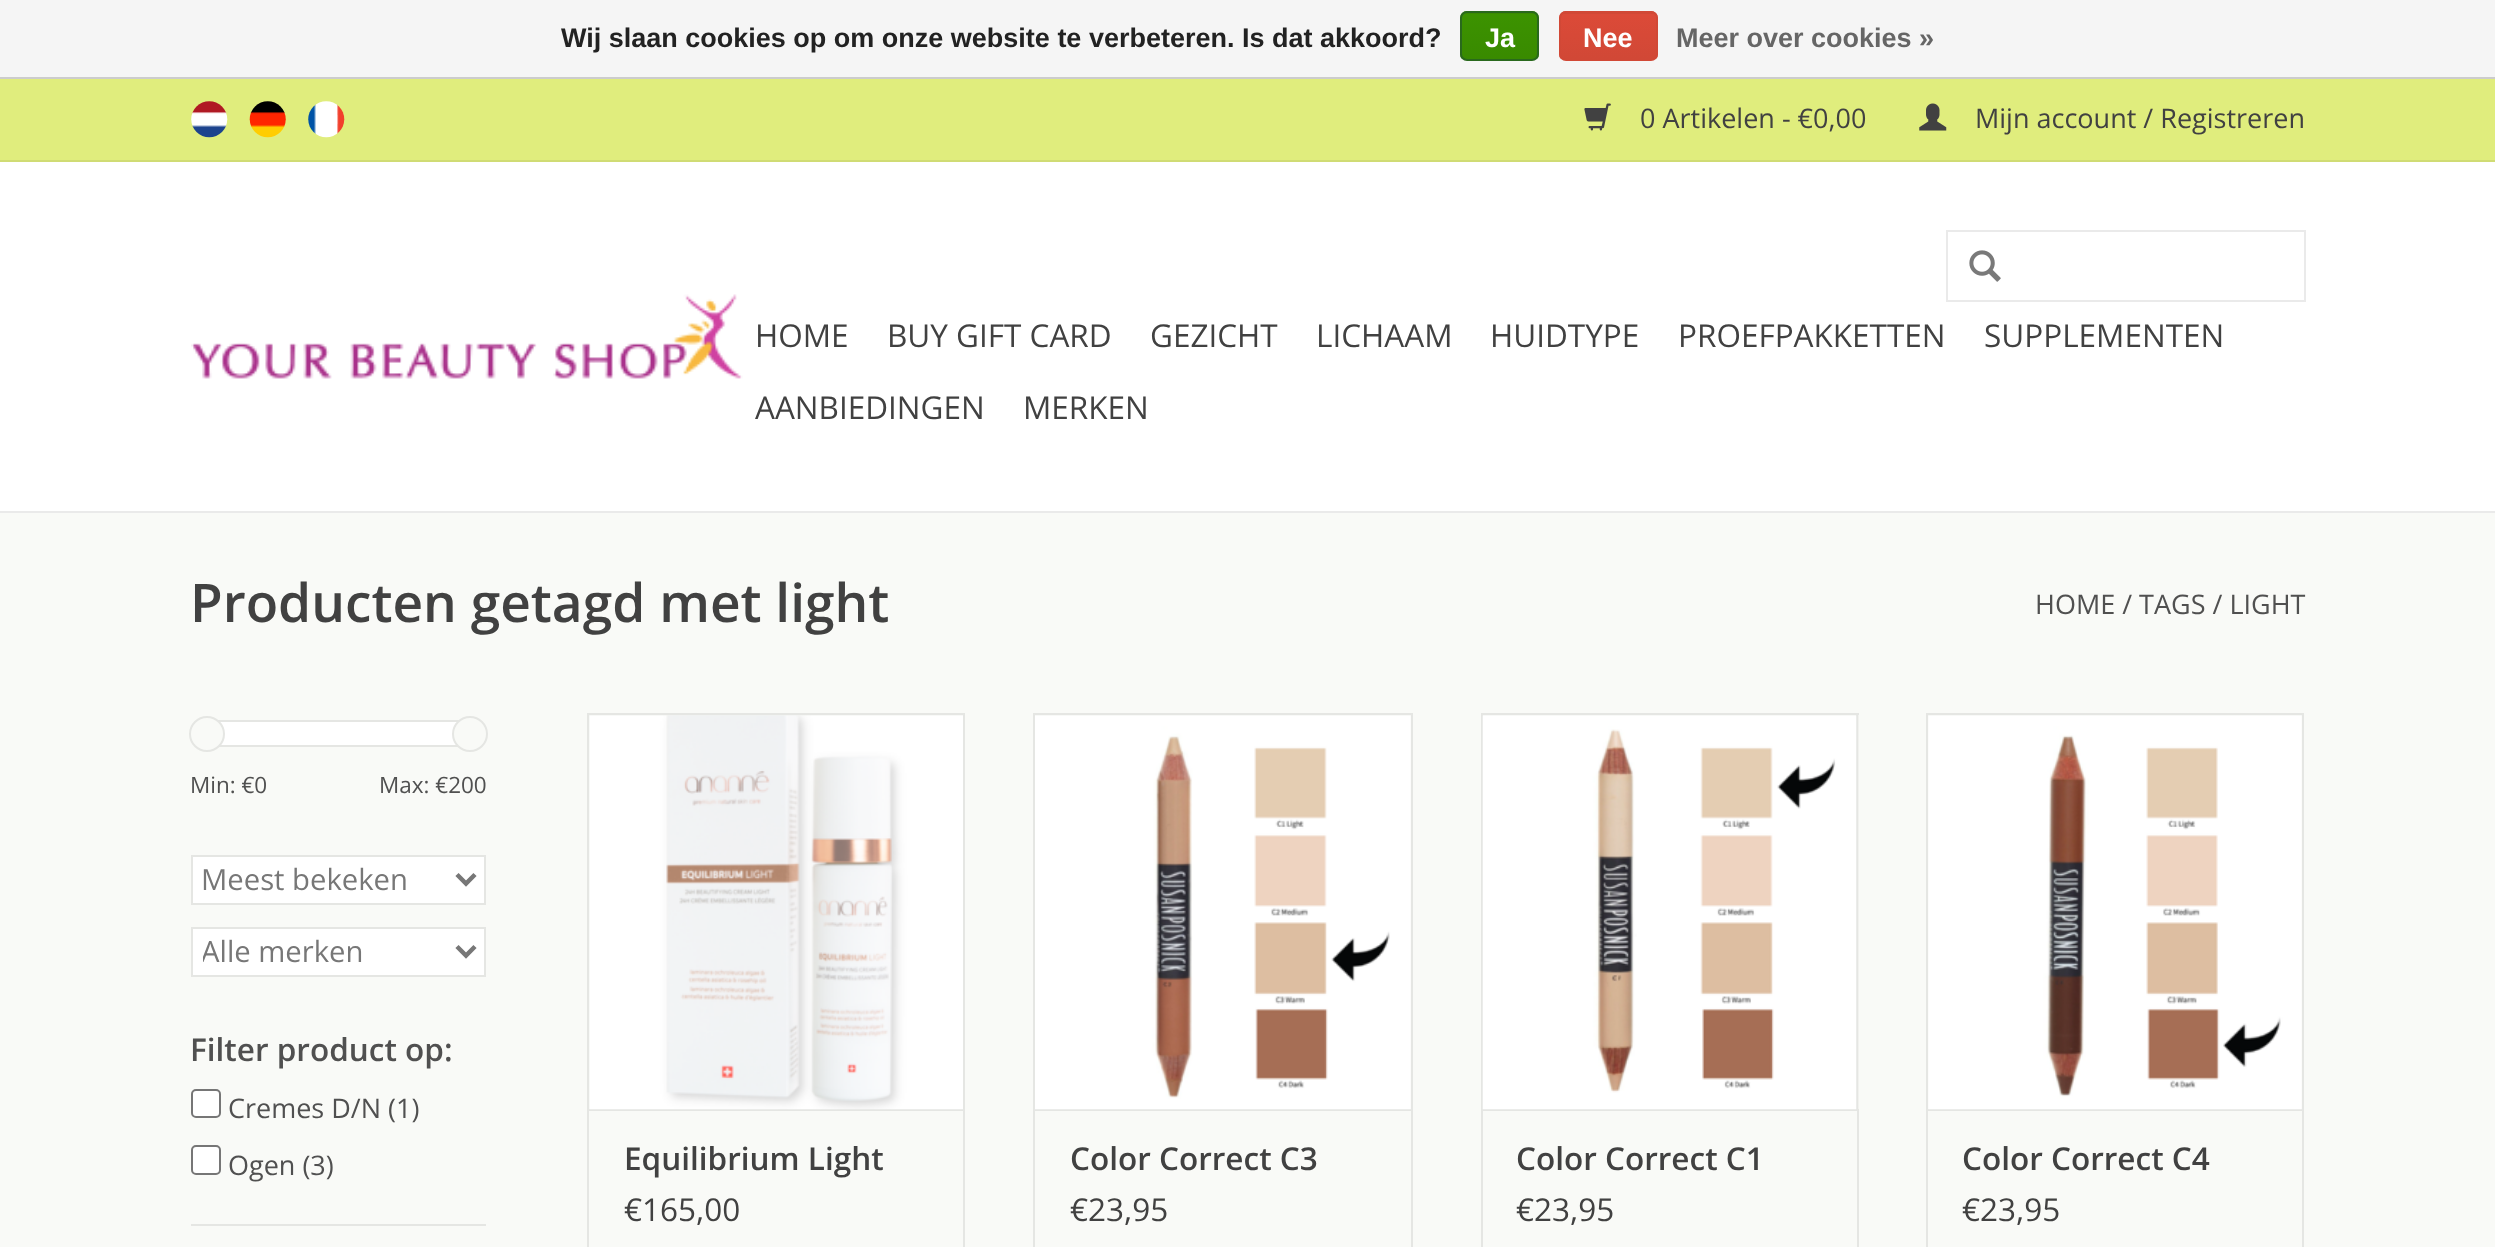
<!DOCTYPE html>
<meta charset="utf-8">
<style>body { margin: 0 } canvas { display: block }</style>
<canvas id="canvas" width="2495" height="1247"></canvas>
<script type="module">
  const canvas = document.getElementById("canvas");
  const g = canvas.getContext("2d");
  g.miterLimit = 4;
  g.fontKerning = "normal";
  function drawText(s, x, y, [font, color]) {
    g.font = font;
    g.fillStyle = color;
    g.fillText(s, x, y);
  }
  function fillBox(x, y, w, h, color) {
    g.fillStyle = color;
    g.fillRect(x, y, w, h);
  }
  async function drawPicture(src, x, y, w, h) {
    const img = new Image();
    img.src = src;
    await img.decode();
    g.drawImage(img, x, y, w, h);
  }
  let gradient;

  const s1 = ["bold 27px Liberation Sans", "#222222"];
  const s2 = ["bold 27px Liberation Sans", "#FFFFFF"];
  const s3 = ["bold 27px Liberation Sans", "#666666"];
  const s4 = ["27px Open Sans", "#414141"];
  const s5 = ["31.5px Open Sans", "#414141"];
  const s6 = ["600 53.2px Open Sans", "#414141"];
  const s7 = ["27px Open Sans", "#505050"];
  const s8 = ["22.5px Open Sans", "#505050"];
  const s9 = ["29.25px Open Sans", "#777777"];
  const s10 = ["600 31.5px Open Sans", "#505050"];
  const s11 = ["600 31.5px Open Sans", "#414141"];

  fillBox(0, 0, 2495, 1247, "#F9FAF7");
  fillBox(0, 0, 2495, 77, "#F5F5F5");
  fillBox(0, 77, 2495, 2, "#CCCCCC");
  drawText("Wij slaan cookies op om onze website te verbeteren. Is dat akkoord?", 561, 47, s1);
  g.save();
  g.beginPath();
  g.roundRect(1460, 11, 79, 50, 7);
  g.clip();
  gradient = g.createLinearGradient(1500, -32, 1500, 14);
  gradient.addColorStop(0, "#3C9300");
  gradient.addColorStop(1, "#398A00");
  g.fillStyle = gradient;
  g.fillRect(1460, 11, 79, 3);
  gradient = g.createLinearGradient(1500, 13, 1500, 59);
  gradient.addColorStop(0, "#3C9300");
  gradient.addColorStop(1, "#398A00");
  g.fillStyle = gradient;
  g.fillRect(1460, 14, 79, 45);
  g.restore();
  g.beginPath();
  g.roundRect(1461, 12, 77, 48, 6);
  g.strokeStyle = "#29691D";
  g.lineWidth = 2;
  g.stroke();
  drawText("Ja", 1485, 47, s2);
  g.save();
  g.beginPath();
  g.roundRect(1559, 11, 99, 50, 7);
  g.clip();
  gradient = g.createLinearGradient(1609, -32, 1609, 14);
  gradient.addColorStop(0, "#DC4A38");
  gradient.addColorStop(1, "#D14836");
  g.fillStyle = gradient;
  g.fillRect(1559, 11, 99, 3);
  gradient = g.createLinearGradient(1609, 13, 1609, 59);
  gradient.addColorStop(0, "#DC4A38");
  gradient.addColorStop(1, "#D14836");
  g.fillStyle = gradient;
  g.fillRect(1559, 14, 99, 45);
  g.restore();
  g.beginPath();
  g.roundRect(1560, 12, 97, 48, 6);
  g.strokeStyle = "#D14836";
  g.stroke();
  drawText("Nee", 1583, 47, s2);
  drawText("Meer over cookies »", 1676, 47, s3);
  fillBox(0, 162, 2495, 349, "#FFFFFF");
  fillBox(0, 511, 2495, 2, "#EAEAEA");
  fillBox(0, 79, 2495, 81, "#E0ED7D");
  fillBox(0, 160, 2495, 2, "#D0DC74");
  await drawPicture("pic1.png", 191, 101, 37, 37);
  await drawPicture("pic2.png", 249, 101, 37, 37);
  await drawPicture("pic3.png", 308, 101, 37, 37);
  await drawPicture("pic4.png", 1584, 103, 27, 28);
  drawText("0 Artikelen - €0,00", 1640, 128, s4);
  await drawPicture("pic5.png", 1919, 103, 28, 28);
  drawText("Mijn account / Registreren", 1975, 128, s4);
  await drawPicture("pic6.png", 191, 294, 552, 85);
  g.strokeStyle = "#EAEAEA";
  g.strokeRect(1947, 231, 358, 70);
  await drawPicture("pic7.png", 1969, 250, 32, 32);
  drawText("HOME", 755, 347, s5);
  drawText("BUY GIFT CARD", 887, 347, s5);
  drawText("GEZICHT", 1150, 347, s5);
  drawText("LICHAAM", 1316, 347, s5);
  drawText("HUIDTYPE", 1490, 347, s5);
  drawText("PROEFPAKKETTEN", 1678, 347, s5);
  drawText("SUPPLEMENTEN", 1984, 347, s5);
  drawText("AANBIEDINGEN", 755, 419, s5);
  drawText("MERKEN", 1023, 419, s5);
  drawText("Producten getagd met light", 190, 622, s6);
  drawText("HOME / TAGS / LIGHT", 2035, 614, s7);
  fillBox(191, 1224, 295, 2, "#E5E6E3");
  fillBox(220, 722, 237, 23, "#FFFFFF");
  g.strokeStyle = "#E5E6E3";
  g.strokeRect(210, 721, 262, 25);
  g.fillStyle = "#F9FAF7";
  g.beginPath();
  g.arc(207, 734, 17, 0, Math.PI * 2);
  g.fill();
  g.stroke();
  g.beginPath();
  g.arc(470, 734, 17, 0, Math.PI * 2);
  g.fill();
  g.stroke();
  drawText("Min: €0", 190, 793, s8);
  drawText("Max: €200", 379, 793, s8);
  g.fillStyle = "#FFFFFF";
  g.beginPath();
  g.rect(192, 856, 293, 48);
  g.fill();
  g.stroke();
  g.beginPath();
  g.moveTo(457, 874.5);
  g.lineTo(466, 883.5);
  g.lineTo(475, 874.5);
  g.strokeStyle = "#777777";
  g.lineWidth = 4.5;
  g.stroke();
  drawText("Meest bekeken", 201, 890, s9);
  g.fillStyle = "#FFFFFF";
  g.beginPath();
  g.rect(192, 928, 293, 48);
  g.fill();
  g.strokeStyle = "#E5E6E3";
  g.lineWidth = 2;
  g.stroke();
  g.beginPath();
  g.moveTo(457, 946.5);
  g.lineTo(466, 955.5);
  g.lineTo(475, 946.5);
  g.strokeStyle = "#777777";
  g.lineWidth = 4.5;
  g.stroke();
  g.save();
  g.beginPath();
  g.rect(203, 929, 245, 45);
  g.clip();
  drawText("Alle merken", 201, 962, s9);
  g.restore();
  drawText("Filter product op:", 190, 1061, s10);
  g.fillStyle = "#FFFFFF";
  g.beginPath();
  g.roundRect(192, 1090, 28, 27, 4);
  g.fill();
  g.strokeStyle = "#767676";
  g.lineWidth = 2;
  g.stroke();
  drawText("Cremes D/N (1)", 228, 1118, s7);
  g.fillStyle = "#FFFFFF";
  g.beginPath();
  g.roundRect(192, 1146, 28, 28, 4);
  g.fill();
  g.stroke();
  drawText("Ogen (3)", 228, 1175, s7);
  fillBox(589, 715, 374, 394, "#F1F2EF");
  fillBox(587, 713, 378, 2, "#E5E6E3");
  fillBox(963, 713, 2, 396, "#E5E6E3");
  fillBox(587, 713, 2, 396, "#E5E6E3");
  g.strokeStyle = "#E5E6E3";
  g.strokeRect(588, 1110, 376, 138);
  await drawPicture("pic8.png", 589, 715, 374, 395);
  drawText("Equilibrium Light", 624, 1170, s11);
  drawText("€165,00", 624, 1221, s5);
  fillBox(1035, 715, 376, 394, "#F1F2EF");
  fillBox(1033, 713, 380, 2, "#E5E6E3");
  fillBox(1411, 713, 2, 396, "#E5E6E3");
  fillBox(1033, 713, 2, 396, "#E5E6E3");
  g.strokeRect(1034, 1110, 378, 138);
  await drawPicture("pic9.png", 1035, 715, 376, 395);
  drawText("Color Correct C3", 1070, 1170, s11);
  drawText("€23,95", 1070, 1221, s5);
  fillBox(1483, 715, 376, 394, "#F1F2EF");
  fillBox(1481, 713, 378, 2, "#E5E6E3");
  fillBox(1856, 713, 2, 396, "#E5E6E3");
  fillBox(1481, 713, 2, 396, "#E5E6E3");
  g.strokeRect(1482, 1110, 376, 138);
  await drawPicture("pic10.png", 1482, 715, 375, 395);
  drawText("Color Correct C1", 1516, 1170, s11);
  drawText("€23,95", 1516, 1221, s5);
  fillBox(1928, 715, 374, 394, "#F1F2EF");
  fillBox(1926, 713, 378, 2, "#E5E6E3");
  fillBox(2302, 713, 2, 396, "#E5E6E3");
  fillBox(1926, 713, 2, 396, "#E5E6E3");
  g.strokeRect(1927, 1110, 376, 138);
  await drawPicture("pic11.png", 1928, 715, 374, 395);
  drawText("Color Correct C4", 1962, 1170, s11);
  drawText("€23,95", 1962, 1221, s5);
</script>
